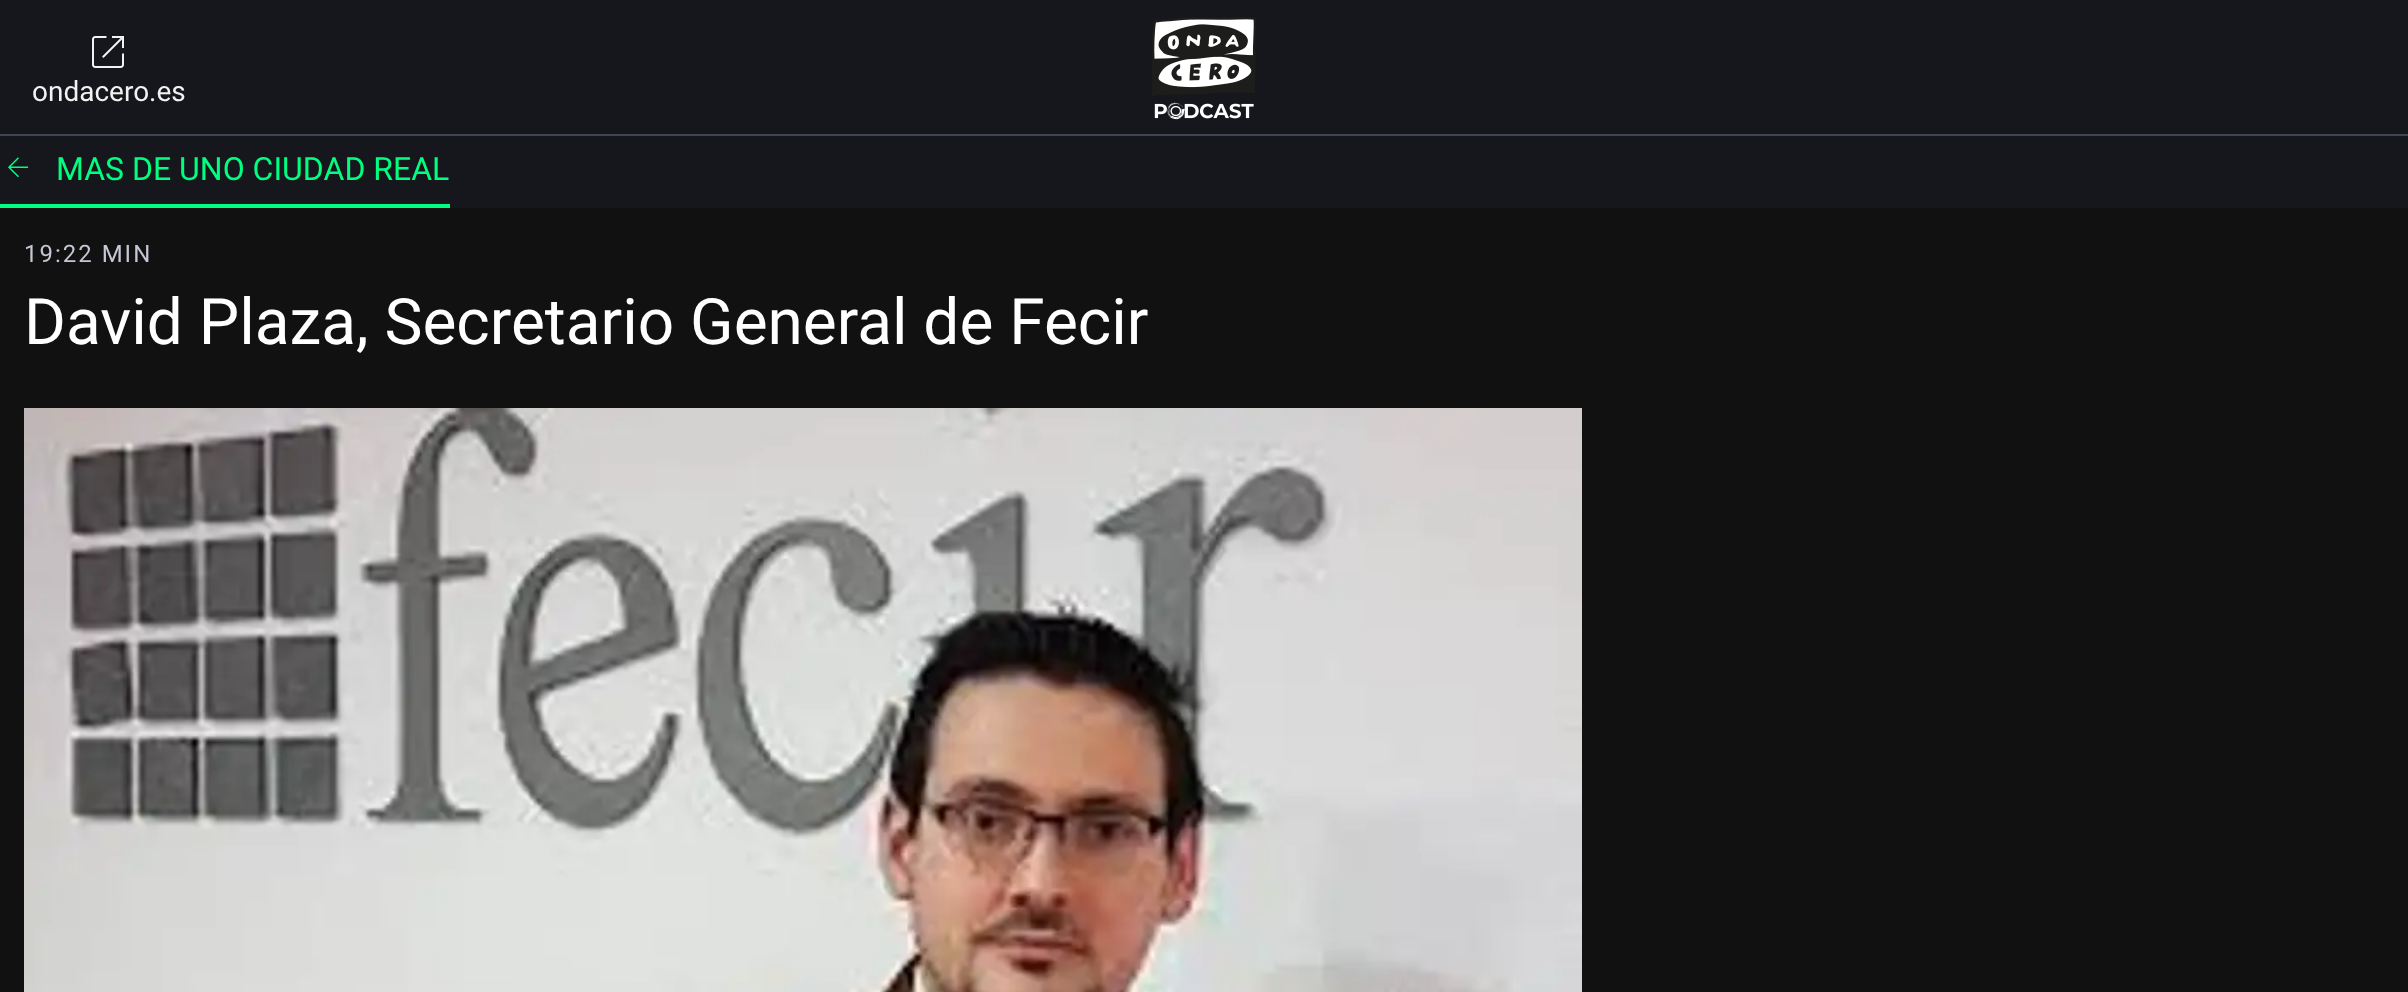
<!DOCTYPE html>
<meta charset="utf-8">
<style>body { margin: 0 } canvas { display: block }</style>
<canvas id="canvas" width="2408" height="992"></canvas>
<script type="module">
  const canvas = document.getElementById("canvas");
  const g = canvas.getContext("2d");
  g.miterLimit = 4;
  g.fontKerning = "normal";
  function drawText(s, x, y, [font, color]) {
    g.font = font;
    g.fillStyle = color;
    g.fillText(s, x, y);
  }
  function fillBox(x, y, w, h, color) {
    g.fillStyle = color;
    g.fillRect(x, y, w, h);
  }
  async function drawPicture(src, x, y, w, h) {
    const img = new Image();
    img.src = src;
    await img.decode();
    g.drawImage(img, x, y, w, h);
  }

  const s1 = ["28px Roboto", "#F2F2F2"];
  const s2 = ["32px Roboto", "#00FF80"];
  const s3 = ["24px Roboto", "#C4C7D4"];
  const s4 = ["64px Roboto", "#FFFFFF"];

  fillBox(0, 0, 2408, 992, "#111111");
  fillBox(0, 0, 2408, 134, "#16171D");
  fillBox(0, 134, 2408, 2, "#414558");
  await drawPicture("pic1.png", 92, 36, 32, 32);
  drawText("ondacero.es", 32, 101, s1);
  await drawPicture("pic2.png", 1152, 17, 104, 103);
  fillBox(0, 136, 2408, 72, "#16171D");
  fillBox(0, 204, 450, 4, "#00FF80");
  await drawPicture("pic3.png", 8, 157, 21, 21);
  drawText("MAS DE UNO CIUDAD REAL", 56, 180, s2);
  g.letterSpacing = "2px";
  drawText("19:22 MIN", 24, 262, s3);
  g.letterSpacing = "0px";
  drawText("David Plaza, Secretario General de Fecir", 24, 344, s4);
  await drawPicture("pic4.png", 24, 408, 1558, 584);
</script>
